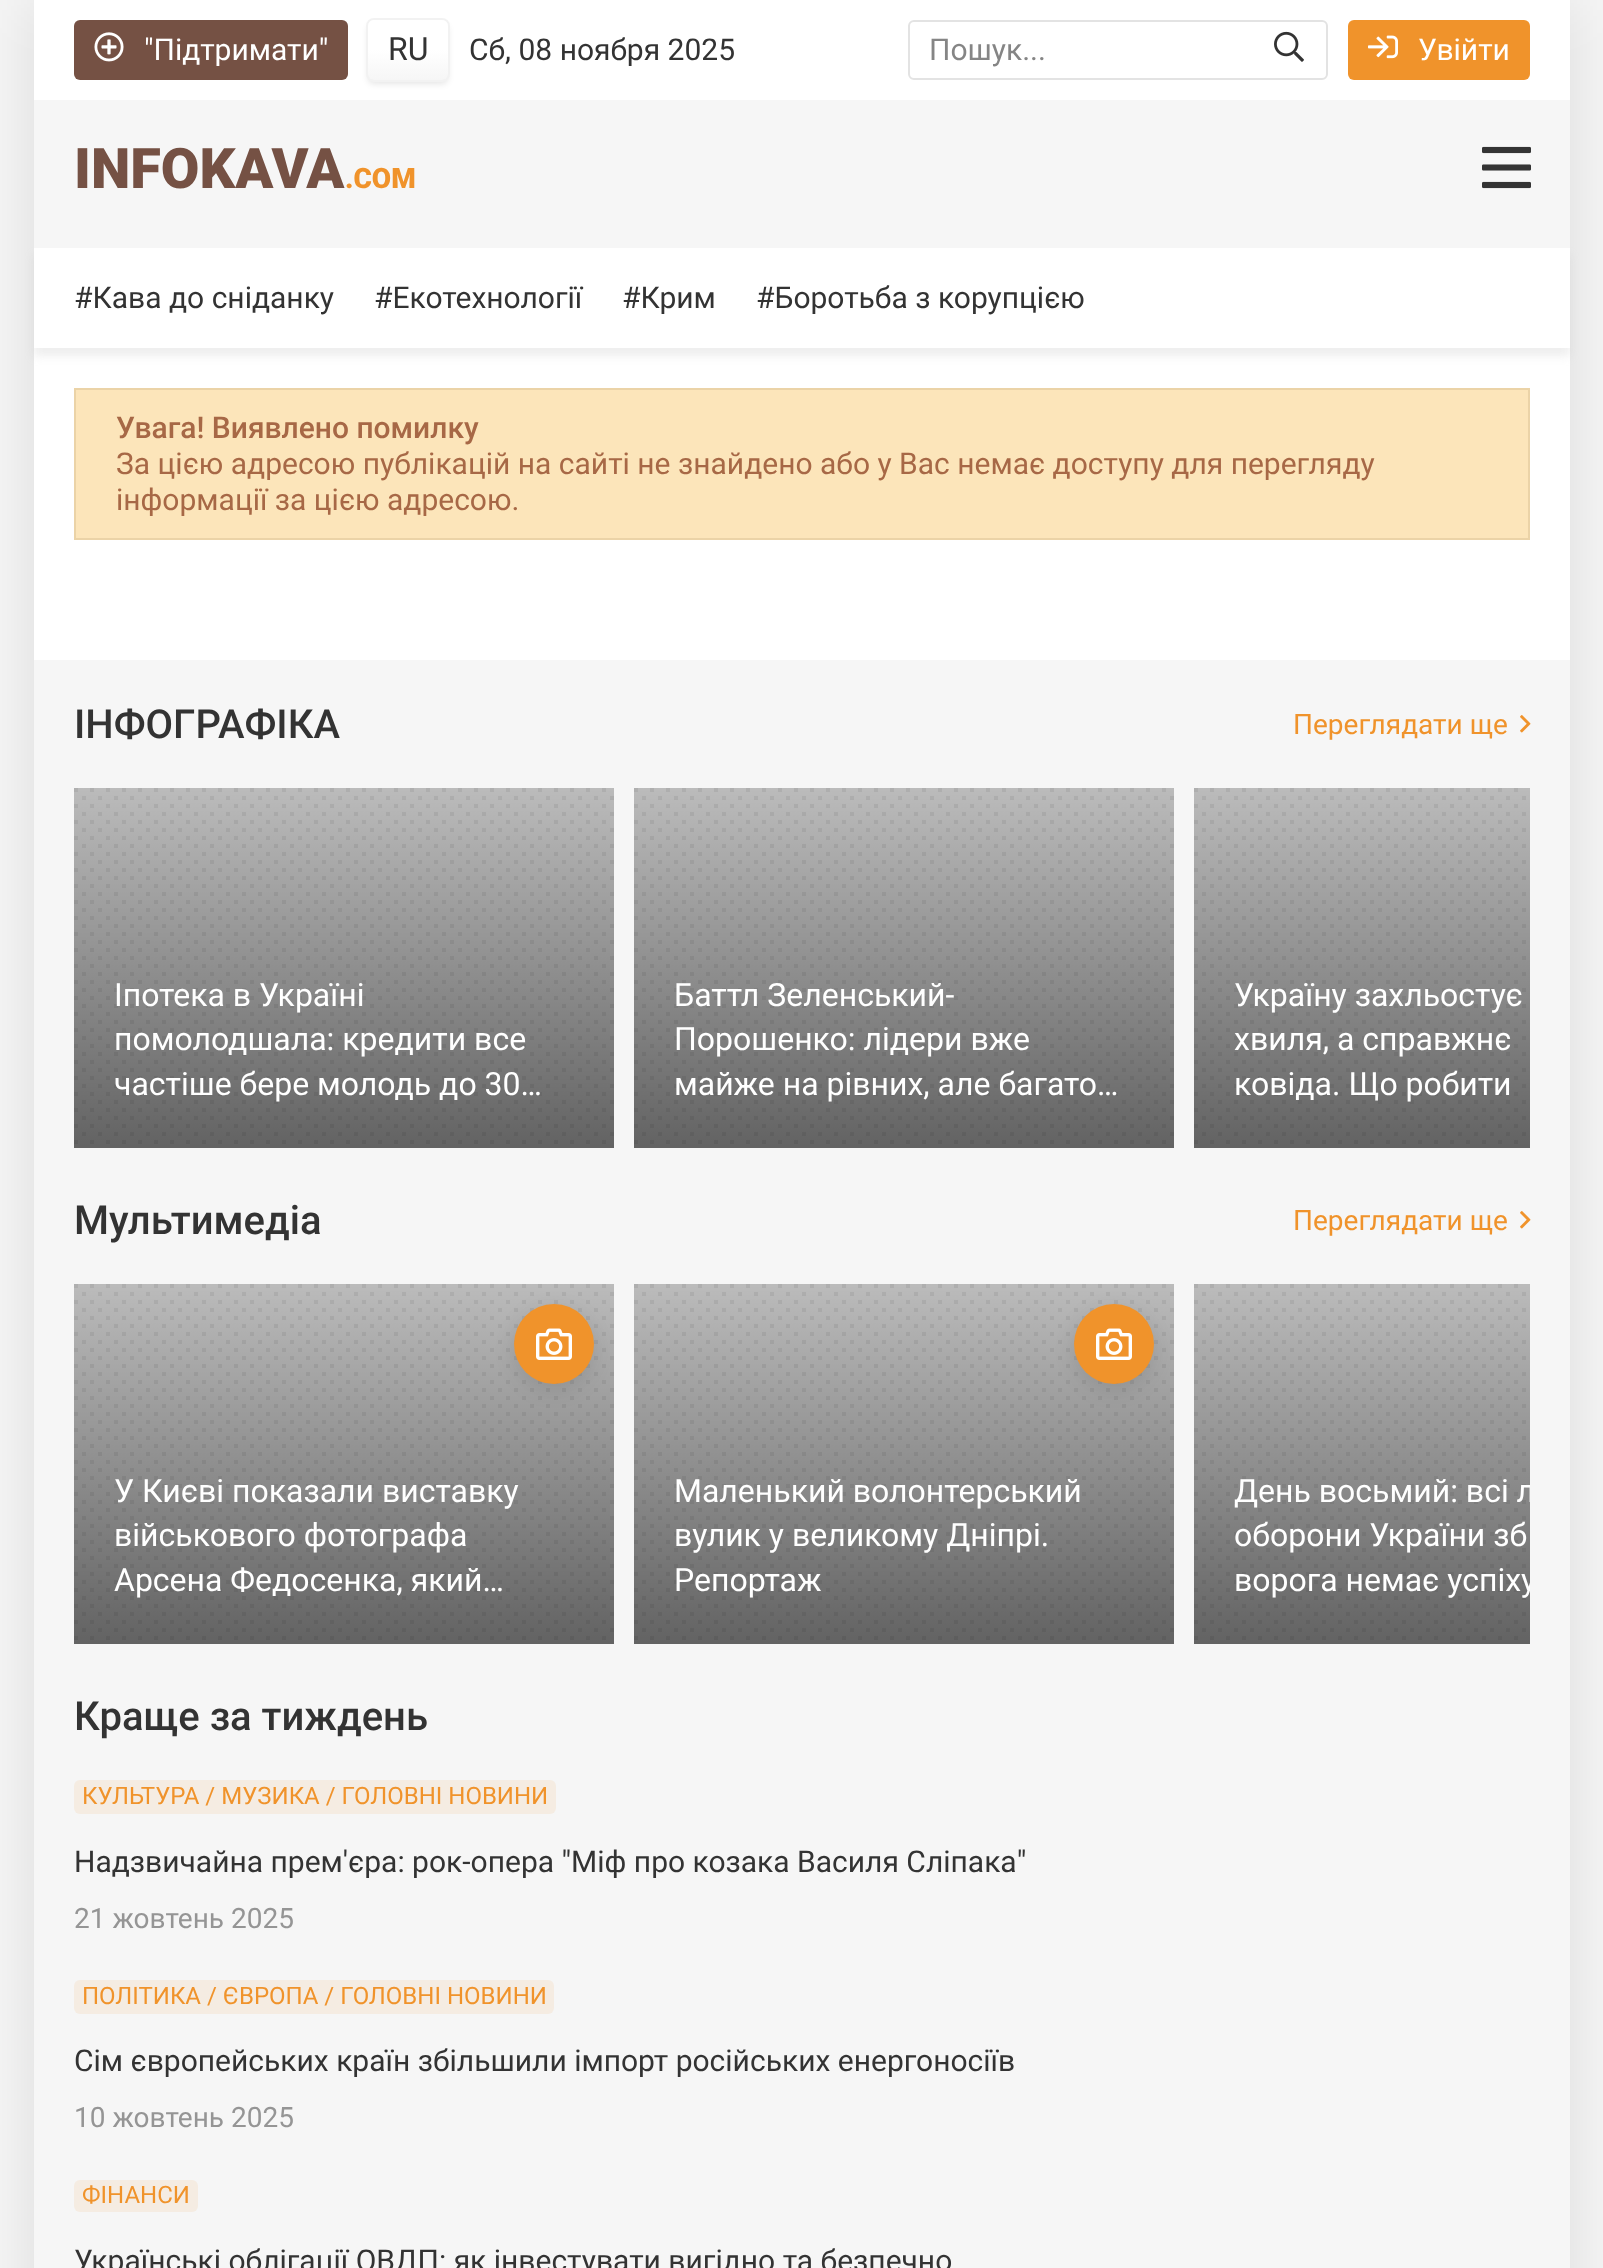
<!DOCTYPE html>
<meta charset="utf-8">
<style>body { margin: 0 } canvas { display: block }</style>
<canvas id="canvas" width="1603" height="2268"></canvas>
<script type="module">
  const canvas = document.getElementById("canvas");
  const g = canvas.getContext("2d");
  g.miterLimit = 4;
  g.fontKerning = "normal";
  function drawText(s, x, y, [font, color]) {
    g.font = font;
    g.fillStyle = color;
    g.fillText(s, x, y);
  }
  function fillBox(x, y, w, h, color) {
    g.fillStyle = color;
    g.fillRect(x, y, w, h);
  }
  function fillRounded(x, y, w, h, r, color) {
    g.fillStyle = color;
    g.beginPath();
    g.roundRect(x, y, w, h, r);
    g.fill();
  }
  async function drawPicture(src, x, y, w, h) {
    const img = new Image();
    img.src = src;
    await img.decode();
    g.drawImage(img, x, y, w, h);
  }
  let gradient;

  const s1 = ["30px Roboto", "#FFFFFF"];
  const s2 = ["32px Roboto", "#333333"];
  const s3 = ["30px Roboto", "#333333"];
  const s4 = ["30px Roboto", "#858585"];
  const s5 = ["900 56px Roboto", "#755144"];
  const s6 = ["900 28px Roboto", "#F0932B"];
  const s7 = ["500 30px Roboto", "#A76846"];
  const s8 = ["30px Roboto", "#A76846"];
  const s9 = ["500 40px Roboto", "#333333"];
  const s10 = ["28px Roboto", "#F0932B"];
  const s11 = ["32px Roboto", "#FFFFFF"];
  const s12 = ["24px Roboto", "#F0932B"];
  const s13 = ["28px Roboto", "#959595"];

  fillBox(0, 0, 1603, 2268, "#F5F5F5");
  g.fillStyle = "rgba(0, 0, 0, 0.1)";
  g.filter = "blur(30px)";
  g.beginPath();
  g.rect(34, 0, 1536, 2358);
  g.fill();
  g.filter = "none";
  fillBox(34, 0, 1536, 660, "#FFFFFF");
  fillRounded(74, 20, 274, 60, 6, "#755144");
  await drawPicture("pic1.png", 94, 32, 30, 30);
  drawText("\"Підтримати\"", 144, 60, s1);
  g.fillStyle = "rgba(0, 0, 0, 0.1)";
  g.filter = "blur(3px)";
  g.beginPath();
  g.roundRect(368, 24, 80, 60, 6);
  g.fill();
  g.filter = "none";
  g.beginPath();
  g.roundRect(367, 19, 82, 62, 7);
  g.strokeStyle = "#F2F2F2";
  g.lineWidth = 2;
  g.stroke();
  gradient = g.createLinearGradient(408, 20, 408, 80);
  gradient.addColorStop(0, "#FFFFFF");
  gradient.addColorStop(0.5, "#FFFFFF");
  gradient.addColorStop(1, "#F6F6F6");
  g.fillStyle = gradient;
  g.beginPath();
  g.roundRect(368, 20, 80, 60, 6);
  g.fill();
  drawText("RU", 388, 60, s2);
  drawText("Сб, 08 ноября 2025", 469, 60, s3);
  g.beginPath();
  g.roundRect(909, 21, 418, 58, 5);
  g.strokeStyle = "#E3E3E3";
  g.stroke();
  drawText("Пошук...", 929, 60, s4);
  await drawPicture("pic2.png", 1274, 31, 30, 31);
  fillRounded(1348, 20, 182, 60, 6, "#F0932B");
  await drawPicture("pic3.png", 1368, 35, 30, 24);
  drawText("Увійти", 1418, 60, s1);
  g.save();
  g.beginPath();
  g.moveTo(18, 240);
  g.lineTo(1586, 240);
  g.lineTo(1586, 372);
  g.lineTo(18, 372);
  g.closePath();
  g.moveTo(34, 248);
  g.lineTo(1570, 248);
  g.lineTo(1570, 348);
  g.lineTo(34, 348);
  g.closePath();
  g.clip("evenodd");
  g.fillStyle = "rgba(188, 188, 188, 0.25)";
  g.filter = "blur(5px)";
  g.beginPath();
  g.rect(34, 256, 1536, 100);
  g.fill();
  g.filter = "none";
  g.restore();
  fillBox(34, 100, 1536, 148, "#F6F6F6");
  drawText("INFOKAVA", 74, 188, s5);
  drawText(".COM", 345, 188, s6);
  await drawPicture("pic4.png", 1482, 146, 49, 43);
  drawText("#Кава до сніданку", 74, 308, s3);
  drawText("#Екотехнології", 374, 308, s3);
  drawText("#Крим", 622, 308, s3);
  drawText("#Боротьба з корупцією", 756, 308, s3);
  g.fillStyle = "#FCE5BA";
  g.beginPath();
  g.rect(75, 389, 1454, 150);
  g.fill();
  g.strokeStyle = "#EBD3A7";
  g.stroke();
  drawText("Увага! Виявлено помилку", 116, 438, s7);
  drawText("За цією адресою публікацій на сайті не знайдено або у Вас немає доступу для перегляду", 116, 474, s8);
  drawText("інформації за цією адресою.", 116, 510, s8);
  fillBox(34, 660, 1536, 1608, "#F6F6F6");
  drawText("ІНФОГРАФІКА", 74, 738, s9);
  drawText("Переглядати ще", 1293, 734, s10);
  await drawPicture("pic5.png", 1520, 715, 11, 18);
  await drawPicture("pic6.png", 74, 788, 540, 356);
  gradient = g.createLinearGradient(344, 1148, 344, 788);
  gradient.addColorStop(0, "rgba(0, 0, 0, 0.6)");
  gradient.addColorStop(1, "rgba(0, 0, 0, 0.24)");
  g.fillStyle = gradient;
  g.fillRect(74, 788, 540, 360);
  drawText("Іпотека в Україні", 114, 1006, s11);
  drawText("помолодшала: кредити все", 114, 1050, s11);
  drawText("частіше бере молодь до 30…", 114, 1095, s11);
  await drawPicture("pic6.png", 634, 788, 540, 356);
  gradient = g.createLinearGradient(904, 1148, 904, 788);
  gradient.addColorStop(0, "rgba(0, 0, 0, 0.6)");
  gradient.addColorStop(1, "rgba(0, 0, 0, 0.24)");
  g.fillStyle = gradient;
  g.fillRect(634, 788, 540, 360);
  drawText("Баттл Зеленський-", 674, 1006, s11);
  drawText("Порошенко: лідери вже", 674, 1050, s11);
  drawText("майже на рівних, але багато…", 674, 1095, s11);
  await drawPicture("pic7.png", 1194, 788, 332, 356);
  gradient = g.createLinearGradient(1464, 1148, 1464, 788);
  gradient.addColorStop(0, "rgba(0, 0, 0, 0.6)");
  gradient.addColorStop(1, "rgba(0, 0, 0, 0.24)");
  g.fillStyle = gradient;
  g.fillRect(1194, 788, 336, 360);
  drawText("Україну захльостує", 1234, 1006, s11);
  drawText("хвиля, а справжнє", 1234, 1050, s11);
  drawText("ковіда. Що робити", 1234, 1095, s11);
  drawText("Мультимедіа", 74, 1234, s9);
  drawText("Переглядати ще", 1293, 1230, s10);
  await drawPicture("pic5.png", 1520, 1211, 11, 18);
  await drawPicture("pic6.png", 74, 1284, 540, 356);
  gradient = g.createLinearGradient(344, 1644, 344, 1284);
  gradient.addColorStop(0, "rgba(0, 0, 0, 0.6)");
  gradient.addColorStop(1, "rgba(0, 0, 0, 0.24)");
  g.fillStyle = gradient;
  g.fillRect(74, 1284, 540, 360);
  g.fillStyle = "rgba(0, 0, 0, 0.1)";
  g.filter = "blur(10px)";
  g.beginPath();
  g.roundRect(514, 1310, 80, 80, 40);
  g.fill();
  g.filter = "none";
  g.fillStyle = "#F0932B";
  g.beginPath();
  g.arc(554, 1344, 40, 0, Math.PI * 2);
  g.fill();
  await drawPicture("pic8.png", 536, 1328, 36, 32);
  drawText("У Києві показали виставку", 114, 1502, s11);
  drawText("військового фотографа", 114, 1546, s11);
  drawText("Арсена Федосенка, який…", 114, 1591, s11);
  await drawPicture("pic6.png", 634, 1284, 540, 356);
  gradient = g.createLinearGradient(904, 1644, 904, 1284);
  gradient.addColorStop(0, "rgba(0, 0, 0, 0.6)");
  gradient.addColorStop(1, "rgba(0, 0, 0, 0.24)");
  g.fillStyle = gradient;
  g.fillRect(634, 1284, 540, 360);
  g.fillStyle = "rgba(0, 0, 0, 0.1)";
  g.filter = "blur(10px)";
  g.beginPath();
  g.roundRect(1074, 1310, 80, 80, 40);
  g.fill();
  g.filter = "none";
  g.fillStyle = "#F0932B";
  g.beginPath();
  g.arc(1114, 1344, 40, 0, Math.PI * 2);
  g.fill();
  await drawPicture("pic8.png", 1096, 1328, 36, 32);
  drawText("Маленький волонтерський", 674, 1502, s11);
  drawText("вулик у великому Дніпрі.", 674, 1546, s11);
  drawText("Репортаж", 674, 1591, s11);
  await drawPicture("pic7.png", 1194, 1284, 332, 356);
  gradient = g.createLinearGradient(1464, 1644, 1464, 1284);
  gradient.addColorStop(0, "rgba(0, 0, 0, 0.6)");
  gradient.addColorStop(1, "rgba(0, 0, 0, 0.24)");
  g.fillStyle = gradient;
  g.fillRect(1194, 1284, 336, 360);
  g.save();
  g.beginPath();
  g.rect(1234, 1470, 296, 134);
  g.clip();
  drawText("День восьмий: всі л", 1234, 1502, s11);
  g.restore();
  drawText("оборони України зб", 1234, 1546, s11);
  g.save();
  g.beginPath();
  g.rect(1234, 1470, 296, 134);
  g.clip();
  drawText("ворога немає успіху", 1234, 1591, s11);
  g.restore();
  drawText("Краще за тиждень", 74, 1730, s9);
  fillRounded(74, 1780, 482, 34, 6, "#F5ECE2");
  drawText("КУЛЬТУРА / МУЗИКА / ГОЛОВНІ НОВИНИ", 82, 1804, s12);
  drawText("Надзвичайна прем'єра: рок-опера \"Міф про козака Василя Сліпака\"", 74, 1872, s3);
  drawText("21 жовтень 2025", 74, 1928, s13);
  fillRounded(74, 1980, 480, 34, 6, "#F5ECE2");
  drawText("ПОЛІТИКА / ЄВРОПА / ГОЛОВНІ НОВИНИ", 82, 2004, s12);
  drawText("Сім європейських країн збільшили імпорт російських енергоносіїв", 74, 2071, s3);
  drawText("10 жовтень 2025", 74, 2127, s13);
  fillRounded(74, 2180, 124, 32, 6, "#F5ECE2");
  drawText("ФІНАНСИ", 82, 2203, s12);
  drawText("Українські облігації ОВДП: як інвестувати вигідно та безпечно", 74, 2271, s3);
</script>
